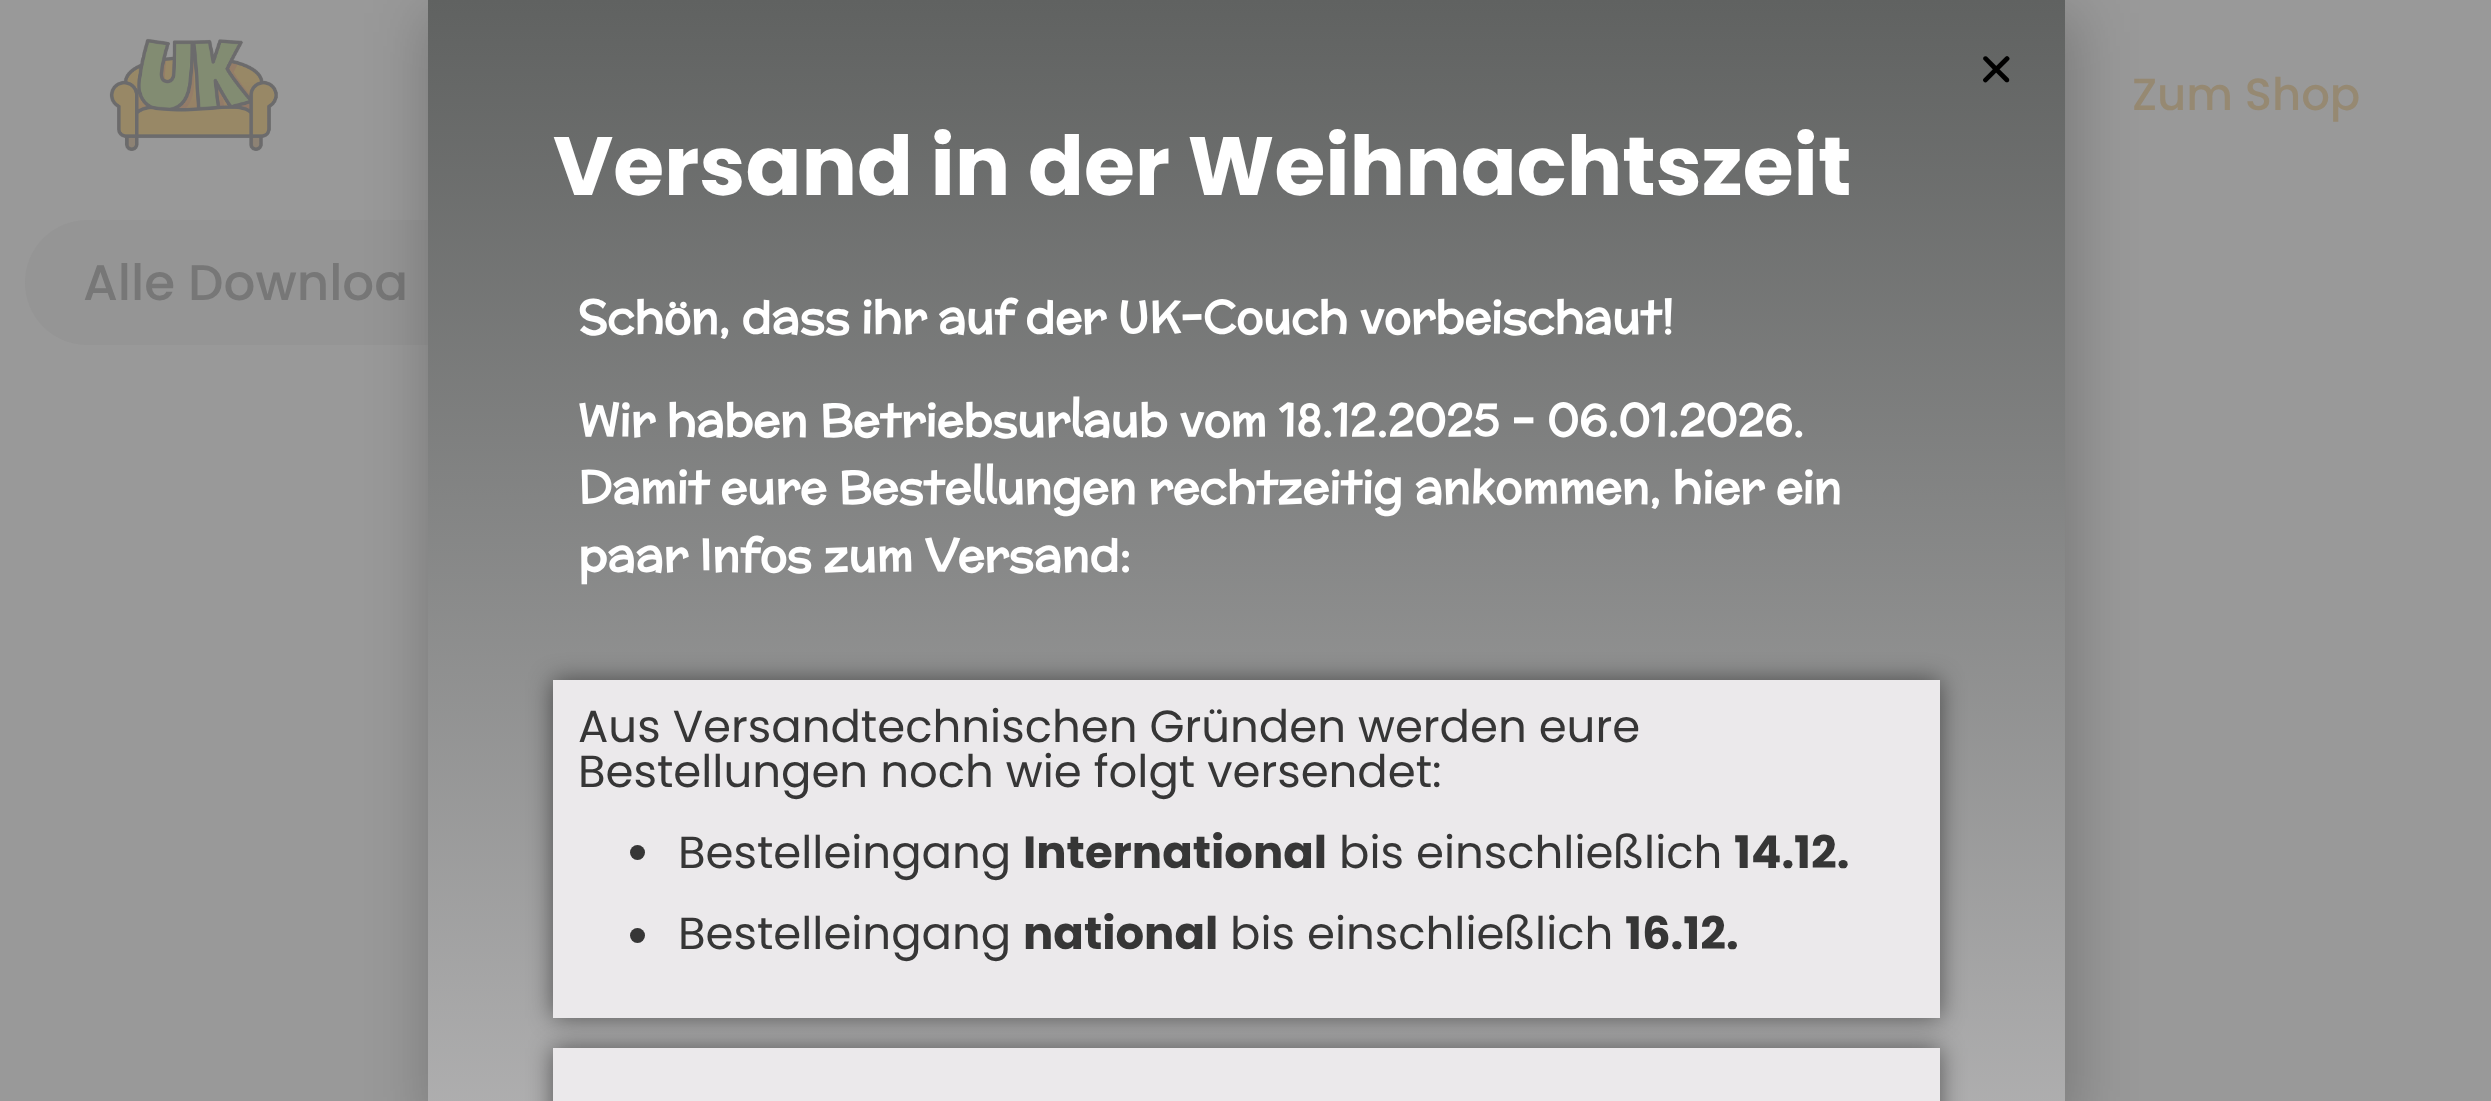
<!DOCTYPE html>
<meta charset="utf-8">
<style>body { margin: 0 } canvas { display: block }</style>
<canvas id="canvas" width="2491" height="1101"></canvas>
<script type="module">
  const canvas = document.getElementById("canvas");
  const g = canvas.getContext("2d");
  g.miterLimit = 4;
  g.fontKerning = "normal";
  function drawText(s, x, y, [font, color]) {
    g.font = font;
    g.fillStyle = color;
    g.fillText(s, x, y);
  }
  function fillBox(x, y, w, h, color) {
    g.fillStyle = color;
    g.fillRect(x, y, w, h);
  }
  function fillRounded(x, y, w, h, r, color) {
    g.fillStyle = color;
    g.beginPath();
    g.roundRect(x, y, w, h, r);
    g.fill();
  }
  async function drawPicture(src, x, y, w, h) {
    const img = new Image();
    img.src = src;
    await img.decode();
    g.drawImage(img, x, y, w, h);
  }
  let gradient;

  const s1 = ["500 45px Poppins", "#968972"];
  const s2 = ["500 50px Poppins", "#777777"];
  const s3 = ["bold 82.5px Poppins", "#FFFFFF"];
  const s4 = ["bold 45px McLaren", "#FFFFFF"];
  const s5 = ["45px Poppins", "#363636"];
  const s6 = ["bold 45px Poppins", "#363636"];

  fillBox(0, 0, 2491, 1101, "#999999");
  await drawPicture("pic1.png", 109, 38, 169, 113);
  drawText("Zum Shop", 2132, 110, s1);
  fillRounded(25, 220, 745, 125, 62.5, "#959595");
  drawText("Alle Downloa", 83, 300, s2);
  g.fillStyle = "rgba(0, 0, 0, 0.2)";
  g.filter = "blur(29px)";
  g.beginPath();
  g.rect(425, 13, 1653, 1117);
  g.fill();
  g.filter = "none";
  gradient = g.createLinearGradient(1246, 0, 1246, 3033);
  gradient.addColorStop(0, "#606261");
  gradient.addColorStop(0.65, "#EBE9EB");
  g.fillStyle = gradient;
  g.fillRect(428, 0, 1637, 1101);
  await drawPicture("pic2.png", 1983, 56, 27, 27);
  drawText("Versand in der Weihnachtszeit", 553, 195, s3);
  drawText("Schön, dass ihr auf der UK-Couch vorbeischaut!", 578, 333, s4);
  drawText("Wir haben Betriebsurlaub vom 18.12.2025 – 06.01.2026.", 578, 436, s4);
  drawText("Damit eure Bestellungen rechtzeitig ankommen, hier ein", 578, 503, s4);
  drawText("paar Infos zum Versand:", 578, 571, s4);
  g.fillStyle = "rgba(0, 0, 0, 0.5)";
  g.filter = "blur(12.5px)";
  g.beginPath();
  g.rect(553, 680, 1387, 338);
  g.fill();
  g.filter = "none";
  fillBox(553, 680, 1387, 338, "#EBE9EB");
  drawText("Aus Versandtechnischen Gründen werden eure", 578, 742, s5);
  drawText("Bestellungen noch wie folgt versendet:", 578, 787, s5);
  g.beginPath();
  g.arc(637.5, 852.5, 7.5, 0, Math.PI * 2);
  g.fill();
  drawText("Bestelleingang", 678, 868, s5);
  drawText("International", 1023, 868, s6);
  drawText("bis einschließlich", 1339, 868, s5);
  drawText("14.12.", 1734, 868, s6);
  g.beginPath();
  g.arc(637.5, 935.5, 7.5, 0, Math.PI * 2);
  g.fill();
  drawText("Bestelleingang", 678, 949, s5);
  drawText("national", 1023, 949, s6);
  drawText("bis einschließlich", 1230, 949, s5);
  drawText("16.12.", 1625, 949, s6);
  g.fillStyle = "rgba(0, 0, 0, 0.5)";
  g.filter = "blur(12.5px)";
  g.beginPath();
  g.rect(553, 1048, 1387, 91);
  g.fill();
  g.filter = "none";
  fillBox(553, 1048, 1387, 53, "#EBE9EB");
</script>
